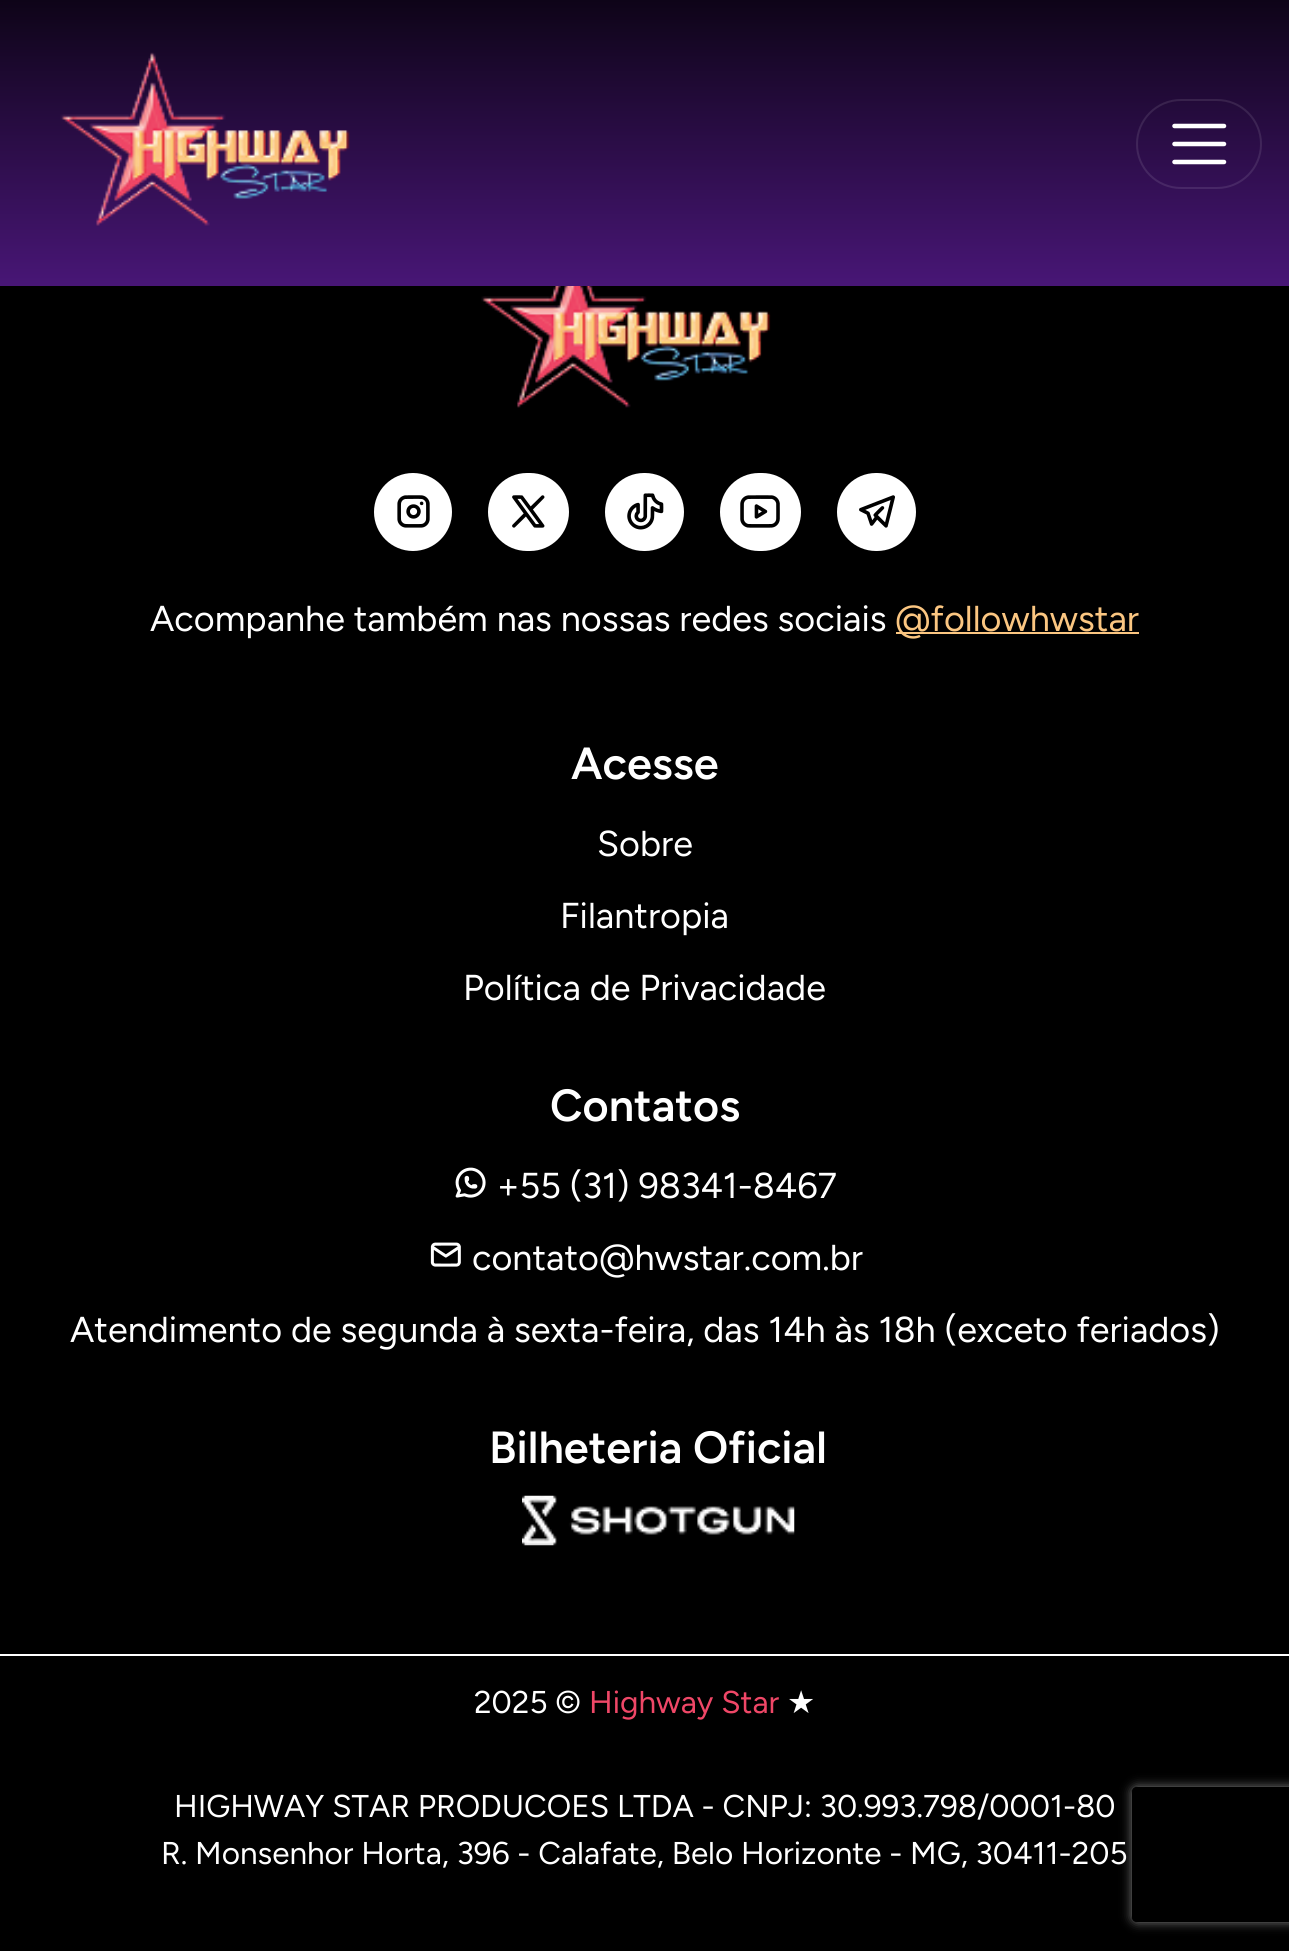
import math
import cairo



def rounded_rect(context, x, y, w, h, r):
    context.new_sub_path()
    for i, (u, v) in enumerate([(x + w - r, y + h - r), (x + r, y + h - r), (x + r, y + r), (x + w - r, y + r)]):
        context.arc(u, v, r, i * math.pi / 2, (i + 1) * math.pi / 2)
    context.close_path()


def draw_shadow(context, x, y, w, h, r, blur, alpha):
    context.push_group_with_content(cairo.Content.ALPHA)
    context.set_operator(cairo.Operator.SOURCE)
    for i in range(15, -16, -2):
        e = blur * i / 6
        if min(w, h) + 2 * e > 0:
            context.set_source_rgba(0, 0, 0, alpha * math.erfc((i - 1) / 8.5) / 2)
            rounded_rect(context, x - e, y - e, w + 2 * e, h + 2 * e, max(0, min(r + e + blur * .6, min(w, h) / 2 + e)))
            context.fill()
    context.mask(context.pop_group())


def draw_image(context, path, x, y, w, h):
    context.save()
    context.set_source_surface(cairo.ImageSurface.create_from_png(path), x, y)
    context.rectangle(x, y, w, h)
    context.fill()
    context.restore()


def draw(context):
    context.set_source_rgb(0, 0, 0)
    context.paint()
    gradient = cairo.LinearGradient(645, 0, 645, 286)
    gradient.add_color_stop_rgba(0, 14 / 255, 4 / 255, 24 / 255, 1)
    gradient.add_color_stop_rgba(1, 72 / 255, 22 / 255, 118 / 255, 1)
    context.set_source(gradient)
    context.rectangle(0, 0, 1289, 286)
    context.fill()
    draw_image(context, "images/1.png", 60, 52, 290, 174)
    rounded_rect(context, 1137, 100, 124, 88, 44)
    context.set_source_rgba(1, 1, 1, 0.1)
    context.stroke()
    context.new_path()
    context.move_to(1174.5, 126)
    context.line_to(1224, 126)
    context.move_to(1174.5, 144)
    context.line_to(1224, 144)
    context.move_to(1174.5, 162)
    context.line_to(1224, 162)
    context.set_source_rgb(1, 1, 1)
    context.set_line_width(4.5)
    context.set_line_cap(cairo.LineCap.ROUND)
    context.stroke()
    draw_image(context, "images/2.png", 481, 286, 290, 122)
    context.arc(413, 512, 39, 0, 2 * math.pi)
    context.fill()
    draw_image(context, "images/3.png", 397, 495, 33, 33)
    rounded_rect(context, 488, 473, 81, 78, 39)
    context.fill()
    draw_image(context, "images/4.png", 512, 495, 33, 33)
    rounded_rect(context, 605, 473, 79, 78, 39)
    context.fill()
    draw_image(context, "images/5.png", 627, 493, 37, 37)
    rounded_rect(context, 720, 473, 81, 78, 39)
    context.fill()
    draw_image(context, "images/6.png", 740, 495, 40, 33)
    rounded_rect(context, 837, 473, 79, 78, 39)
    context.fill()
    draw_image(context, "images/7.png", 859, 495, 36, 33)
    context.set_source_rgb(251 / 255, 198 / 255, 129 / 255)
    context.rectangle(896, 632, 243, 2)
    context.fill()
    draw_image(context, "images/8.png", 455, 1167, 31, 31)
    draw_image(context, "images/9.png", 430, 1242, 31, 25)
    draw_image(context, "images/10.png", 522, 1495, 273, 51)
    context.set_source_rgb(1, 1, 1)
    context.rectangle(0, 1654, 1289, 2)
    context.fill()
    context.save()
    context.set_fill_rule(cairo.FillRule.EVEN_ODD)
    context.new_path()
    context.move_to(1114, 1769)
    context.line_to(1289, 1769)
    context.line_to(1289, 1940)
    context.line_to(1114, 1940)
    context.close_path()
    context.move_to(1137, 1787)
    context.line_to(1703, 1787)
    context.curve_to(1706, 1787, 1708, 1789, 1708, 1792)
    context.line_to(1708, 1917)
    context.curve_to(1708, 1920, 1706, 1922, 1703, 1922)
    context.line_to(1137, 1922)
    context.curve_to(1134, 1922, 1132, 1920, 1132, 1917)
    context.line_to(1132, 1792)
    context.curve_to(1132, 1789, 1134, 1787, 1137, 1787)
    context.close_path()
    context.clip()
    context.set_source_rgb(128 / 255, 128 / 255, 128 / 255)
    draw_shadow(context, 1132, 1787, 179, 135, 5, 5.5, 1)
    context.restore()
    context.select_font_face("Figtree")
    context.set_font_size(36)
    context.move_to(150, 631)
    context.show_text("Acompanhe também nas nossas redes sociais")
    context.set_source_rgb(251 / 255, 198 / 255, 129 / 255)
    context.move_to(895, 631)
    context.show_text("@followhwstar")
    context.select_font_face("Figtree SemiBold")
    context.set_font_size(45)
    context.set_source_rgb(1, 1, 1)
    context.move_to(571, 779)
    context.show_text("Acesse")
    context.select_font_face("Figtree")
    context.set_font_size(36)
    context.move_to(597, 856)
    context.show_text("Sobre")
    context.move_to(560, 928)
    context.show_text("Filantropia")
    context.move_to(463, 1000)
    context.show_text("Política de Privacidade")
    context.select_font_face("Figtree SemiBold")
    context.set_font_size(45)
    context.move_to(550, 1121)
    context.show_text("Contatos")
    context.select_font_face("Figtree")
    context.set_font_size(36)
    context.move_to(497, 1198)
    context.show_text("+55 (31) 98341-8467")
    context.move_to(472, 1270)
    context.show_text("contato@hwstar.com.br")
    context.move_to(70, 1342)
    context.show_text("Atendimento de segunda à sexta-feira, das 14h às 18h (exceto feriados)")
    context.select_font_face("Figtree SemiBold")
    context.set_font_size(45)
    context.move_to(489, 1463)
    context.show_text("Bilheteria Oficial")
    context.select_font_face("Figtree")
    context.set_font_size(31.5)
    context.move_to(474, 1713)
    context.show_text("2025 ©")
    context.set_source_rgb(239 / 255, 71 / 255, 103 / 255)
    context.move_to(589, 1713)
    context.show_text("Highway Star")
    context.select_font_face("DejaVu Sans")
    context.set_source_rgb(1, 1, 1)
    context.move_to(787, 1713)
    context.show_text("★")
    context.select_font_face("Figtree")
    context.move_to(174, 1817)
    context.show_text("HIGHWAY STAR PRODUCOES LTDA - CNPJ: 30.993.798/0001-80")
    context.move_to(161, 1864)
    context.show_text("R. Monsenhor Horta, 396 - Calafate, Belo Horizonte - MG, 30411-205")


surface = cairo.ImageSurface(cairo.Format.RGB24, 1289, 1951)
context = cairo.Context(surface)
options = cairo.FontOptions()
options.set_hint_metrics(cairo.HintMetrics.OFF)
options.set_hint_style(cairo.HintStyle.NONE)
context.set_font_options(options)
context.set_miter_limit(4)
draw(context)
surface.write_to_png("out.png")
